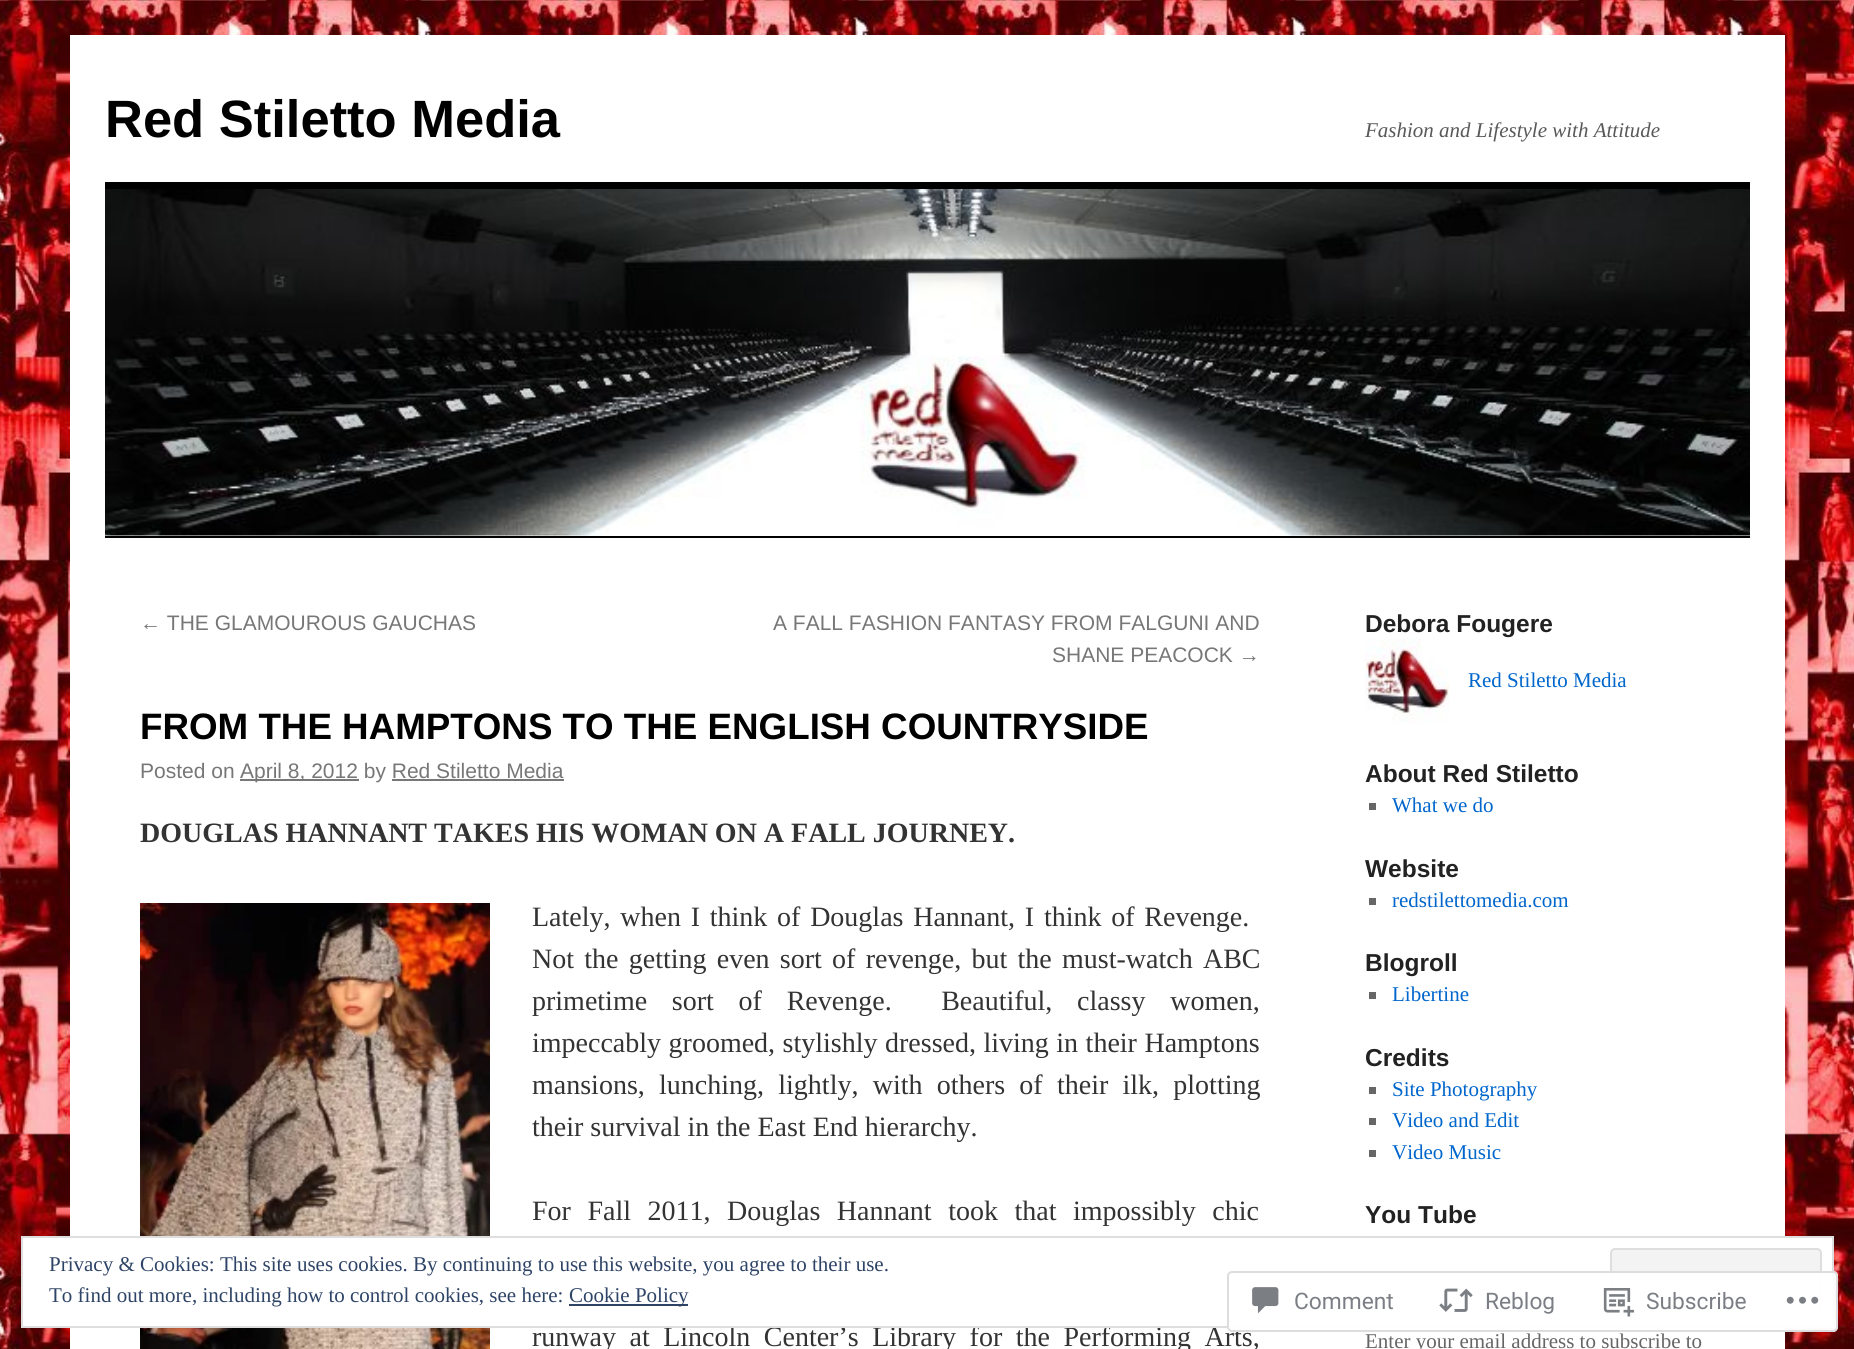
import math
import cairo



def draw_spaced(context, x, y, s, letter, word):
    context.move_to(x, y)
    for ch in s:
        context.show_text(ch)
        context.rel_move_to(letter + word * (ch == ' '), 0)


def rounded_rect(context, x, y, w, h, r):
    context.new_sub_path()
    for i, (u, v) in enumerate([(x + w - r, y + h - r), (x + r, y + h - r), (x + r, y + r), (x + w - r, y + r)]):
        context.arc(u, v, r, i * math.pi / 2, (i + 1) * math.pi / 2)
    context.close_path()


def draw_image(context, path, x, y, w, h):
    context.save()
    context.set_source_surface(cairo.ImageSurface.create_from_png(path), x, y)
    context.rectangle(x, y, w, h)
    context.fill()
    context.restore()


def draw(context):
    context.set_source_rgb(1, 1, 1)
    context.paint()
    draw_image(context, "images/1.png", 0, 0, 1854, 1349)
    context.set_source_rgb(1, 1, 1)
    context.rectangle(70, 35, 1715, 1314)
    context.fill()
    context.set_source_rgb(0, 0, 0)
    context.rectangle(105, 182, 1645, 7)
    context.fill()
    context.rectangle(105, 536, 1645, 2)
    context.fill()
    draw_image(context, "images/2.png", 105, 189, 1645, 347)
    context.set_source_rgb(119 / 255, 119 / 255, 119 / 255)
    context.rectangle(240, 779, 119, 2)
    context.fill()
    context.rectangle(392, 779, 172, 2)
    context.fill()
    draw_image(context, "images/3.png", 140, 903, 350, 446)
    draw_image(context, "images/4.png", 1365, 639, 84, 84)
    context.set_source_rgb(102 / 255, 102 / 255, 102 / 255)
    context.rectangle(1369, 803, 7, 7)
    context.fill()
    context.rectangle(1369, 898, 7, 7)
    context.fill()
    context.rectangle(1369, 992, 7, 7)
    context.fill()
    context.rectangle(1369, 1087, 7, 7)
    context.fill()
    context.rectangle(1369, 1118, 7, 7)
    context.fill()
    context.rectangle(1369, 1150, 7, 7)
    context.fill()
    context.select_font_face("Liberation Sans", cairo.FontSlant.NORMAL, cairo.FontWeight.BOLD)
    context.set_font_size(52.5)
    context.set_source_rgb(0, 0, 0)
    context.move_to(105, 137)
    context.show_text("Red Stiletto Media")
    context.select_font_face("Liberation Serif", cairo.FontSlant.ITALIC)
    context.set_font_size(21)
    context.set_source_rgb(89 / 255, 89 / 255, 89 / 255)
    context.move_to(1365, 137)
    context.show_text("Fashion and Lifestyle with Attitude")
    context.select_font_face("Liberation Sans")
    context.set_source_rgb(119 / 255, 119 / 255, 119 / 255)
    context.move_to(140, 630)
    context.show_text("← THE GLAMOUROUS GAUCHAS")
    context.move_to(773, 630)
    context.show_text("A FALL FASHION FANTASY FROM FALGUNI AND")
    context.move_to(1052, 662)
    context.show_text("SHANE PEACOCK →")
    context.select_font_face("Liberation Sans", cairo.FontSlant.NORMAL, cairo.FontWeight.BOLD)
    context.set_font_size(36.75)
    context.set_source_rgb(0, 0, 0)
    context.move_to(140, 739)
    context.show_text("FROM THE HAMPTONS TO THE ENGLISH COUNTRYSIDE")
    context.select_font_face("Liberation Sans")
    context.set_font_size(21)
    context.set_source_rgb(119 / 255, 119 / 255, 119 / 255)
    context.move_to(140, 778)
    context.show_text("Posted on")
    context.move_to(240, 778)
    context.show_text("April 8, 2012 by Red Stiletto Media")
    context.select_font_face("Liberation Serif", cairo.FontSlant.NORMAL, cairo.FontWeight.BOLD)
    context.set_font_size(28)
    context.set_source_rgb(51 / 255, 51 / 255, 51 / 255)
    context.move_to(140, 842)
    context.show_text("DOUGLAS HANNANT TAKES HIS WOMAN ON A FALL JOURNEY.")
    context.select_font_face("Liberation Serif")
    draw_spaced(context, 532, 926, "Lately, when I think of Douglas Hannant, I think of Revenge.", 0, 2.75)
    draw_spaced(context, 532, 968, "Not the getting even sort of revenge, but the must-watch ABC", 0, 3.25)
    draw_spaced(context, 532, 1010, "primetime sort of Revenge.  Beautiful, classy women,", 0, 17.75)
    draw_spaced(context, 532, 1052, "impeccably groomed, stylishly dressed, living in their Hamptons", 0, 0.5)
    draw_spaced(context, 532, 1094, "mansions, lunching, lightly, with others of their ilk, plotting", 0, 7.25)
    context.move_to(532, 1136)
    context.show_text("their survival in the East End hierarchy.")
    draw_spaced(context, 532, 1220, "For Fall 2011, Douglas Hannant took that impossibly chic", 0, 9.5)
    draw_spaced(context, 532, 1346, "runway at Lincoln Center’s Library for the Performing Arts,", 0, 6.5)
    context.select_font_face("Liberation Sans", cairo.FontSlant.NORMAL, cairo.FontWeight.BOLD)
    context.set_font_size(24.5)
    context.set_source_rgb(34 / 255, 34 / 255, 34 / 255)
    context.move_to(1365, 632)
    context.show_text("Debora Fougere")
    context.select_font_face("Liberation Serif")
    context.set_font_size(21)
    context.set_source_rgb(0, 102 / 255, 204 / 255)
    context.move_to(1468, 687)
    context.show_text("Red Stiletto Media")
    context.select_font_face("Liberation Sans", cairo.FontSlant.NORMAL, cairo.FontWeight.BOLD)
    context.set_font_size(24.5)
    context.set_source_rgb(34 / 255, 34 / 255, 34 / 255)
    context.move_to(1365, 782)
    context.show_text("About Red Stiletto")
    context.select_font_face("Liberation Serif")
    context.set_font_size(21)
    context.set_source_rgb(0, 102 / 255, 204 / 255)
    context.move_to(1392, 812)
    context.show_text("What we do")
    context.select_font_face("Liberation Sans", cairo.FontSlant.NORMAL, cairo.FontWeight.BOLD)
    context.set_font_size(24.5)
    context.set_source_rgb(34 / 255, 34 / 255, 34 / 255)
    context.move_to(1365, 877)
    context.show_text("Website")
    context.select_font_face("Liberation Serif")
    context.set_font_size(21)
    context.set_source_rgb(0, 102 / 255, 204 / 255)
    context.move_to(1392, 907)
    context.show_text("redstilettomedia.com")
    context.select_font_face("Liberation Sans", cairo.FontSlant.NORMAL, cairo.FontWeight.BOLD)
    context.set_font_size(24.5)
    context.set_source_rgb(34 / 255, 34 / 255, 34 / 255)
    context.move_to(1365, 971)
    context.show_text("Blogroll")
    context.select_font_face("Liberation Serif")
    context.set_font_size(21)
    context.set_source_rgb(0, 102 / 255, 204 / 255)
    context.move_to(1392, 1001)
    context.show_text("Libertine")
    context.select_font_face("Liberation Sans", cairo.FontSlant.NORMAL, cairo.FontWeight.BOLD)
    context.set_font_size(24.5)
    context.set_source_rgb(34 / 255, 34 / 255, 34 / 255)
    context.move_to(1365, 1066)
    context.show_text("Credits")
    context.select_font_face("Liberation Serif")
    context.set_font_size(21)
    context.set_source_rgb(0, 102 / 255, 204 / 255)
    context.move_to(1392, 1096)
    context.show_text("Site Photography")
    context.move_to(1392, 1127)
    context.show_text("Video and Edit")
    context.move_to(1392, 1159)
    context.show_text("Video Music")
    context.select_font_face("Liberation Sans", cairo.FontSlant.NORMAL, cairo.FontWeight.BOLD)
    context.set_font_size(24.5)
    context.set_source_rgb(34 / 255, 34 / 255, 34 / 255)
    context.move_to(1365, 1223)
    context.show_text("You Tube")
    context.select_font_face("Liberation Serif")
    context.set_font_size(21)
    context.set_source_rgb(102 / 255, 102 / 255, 102 / 255)
    context.move_to(1365, 1348)
    context.show_text("Enter your email address to subscribe to")
    context.set_source_rgb(1, 1, 1)
    context.rectangle(22, 1237, 1811, 90)
    context.fill_preserve()
    context.set_source_rgb(222 / 255, 222 / 255, 222 / 255)
    context.stroke()
    context.set_source_rgb(46 / 255, 68 / 255, 103 / 255)
    context.move_to(49, 1271)
    context.show_text("Privacy & Cookies: This site uses cookies. By continuing to use this website, you agree to their use.")
    context.set_source_rgb(243 / 255, 243 / 255, 243 / 255)
    rounded_rect(context, 1611, 1249, 210, 66, 4)
    context.fill_preserve()
    context.set_source_rgb(222 / 255, 222 / 255, 222 / 255)
    context.stroke()
    context.set_source_rgb(46 / 255, 68 / 255, 103 / 255)
    context.move_to(49, 1302)
    context.show_text("To find out more, including how to control cookies, see here:")
    context.rectangle(569, 1304, 119, 2)
    context.fill()
    context.move_to(569, 1302)
    context.show_text("Cookie Policy")
    context.set_source_rgba(1, 1, 1, 0.98)
    rounded_rect(context, 1227, 1271, 611, 61, 5)
    context.fill()
    rounded_rect(context, 1228, 1272, 609, 59, 4)
    context.set_source_rgba(220 / 255, 220 / 255, 222 / 255, 0.98)
    context.stroke()
    draw_image(context, "images/5.png", 1252, 1287, 27, 27)
    context.select_font_face("Roboto")
    context.set_font_size(22.75)
    context.set_source_rgb(123 / 255, 127 / 255, 133 / 255)
    context.move_to(1294, 1309)
    context.show_text("Comment")
    draw_image(context, "images/6.png", 1439, 1288, 34, 24)
    context.move_to(1485, 1309)
    context.show_text("Reblog")
    draw_image(context, "images/7.png", 1603, 1288, 32, 29)
    context.move_to(1646, 1309)
    context.show_text("Subscribe")
    draw_image(context, "images/8.png", 1786, 1296, 33, 8)


surface = cairo.ImageSurface(cairo.Format.RGB24, 1854, 1349)
context = cairo.Context(surface)
options = cairo.FontOptions()
options.set_hint_metrics(cairo.HintMetrics.OFF)
options.set_hint_style(cairo.HintStyle.NONE)
context.set_font_options(options)
context.set_miter_limit(4)
draw(context)
surface.write_to_png("out.png")
